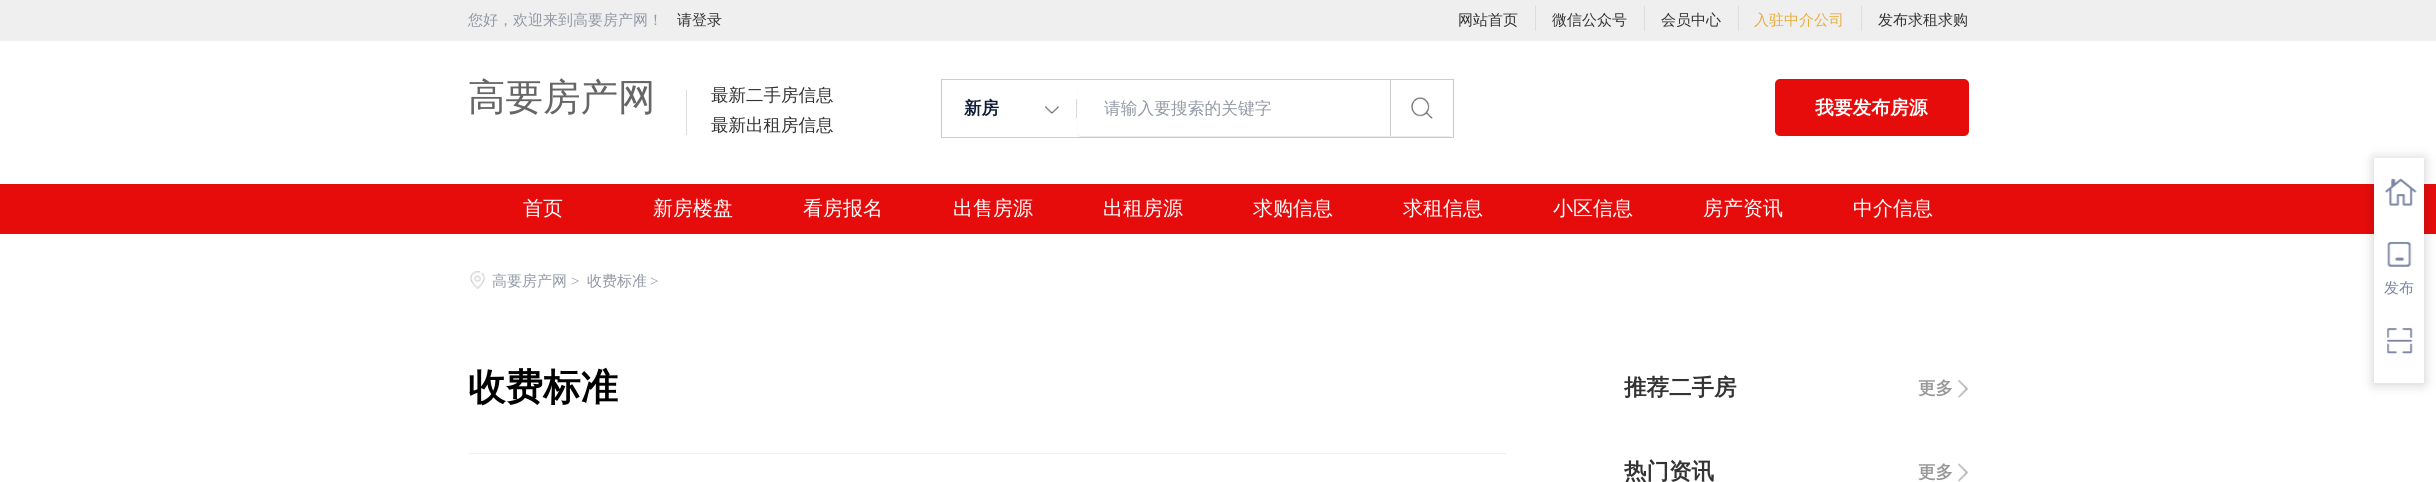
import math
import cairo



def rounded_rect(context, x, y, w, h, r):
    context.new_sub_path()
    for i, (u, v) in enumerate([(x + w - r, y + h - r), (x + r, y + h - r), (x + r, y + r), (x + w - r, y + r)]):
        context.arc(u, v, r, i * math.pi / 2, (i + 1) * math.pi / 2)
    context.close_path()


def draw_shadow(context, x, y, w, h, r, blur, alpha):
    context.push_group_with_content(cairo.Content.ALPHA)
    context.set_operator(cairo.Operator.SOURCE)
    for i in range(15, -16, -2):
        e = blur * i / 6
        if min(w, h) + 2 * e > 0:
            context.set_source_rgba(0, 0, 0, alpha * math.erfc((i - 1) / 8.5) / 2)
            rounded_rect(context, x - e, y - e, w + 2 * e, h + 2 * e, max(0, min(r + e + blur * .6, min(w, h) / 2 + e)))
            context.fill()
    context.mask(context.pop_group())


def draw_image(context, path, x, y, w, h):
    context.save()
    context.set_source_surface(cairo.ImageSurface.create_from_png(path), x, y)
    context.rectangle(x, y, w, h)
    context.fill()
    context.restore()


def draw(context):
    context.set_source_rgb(1, 1, 1)
    context.paint()
    context.set_source_rgb(239 / 255, 239 / 255, 239 / 255)
    context.rectangle(0, 0, 2436, 41)
    context.fill()
    context.set_source_rgb(221 / 255, 221 / 255, 221 / 255)
    context.rectangle(1535, 6, 1, 25)
    context.fill()
    context.rectangle(1644, 6, 1, 25)
    context.fill()
    context.rectangle(1738, 6, 1, 25)
    context.fill()
    context.rectangle(1861, 6, 1, 25)
    context.fill()
    context.rectangle(686, 90, 1, 45)
    context.fill()
    context.rectangle(941.5, 79.5, 512, 58)
    context.set_source_rgb(204 / 255, 204 / 255, 204 / 255)
    context.set_line_width(1)
    context.stroke()
    context.set_source_rgb(221 / 255, 221 / 255, 221 / 255)
    context.rectangle(1076, 99, 1, 19)
    context.fill()
    draw_image(context, "images/1.png", 1045, 106, 14, 8)
    context.set_source_rgb(0, 0, 0)
    draw_shadow(context, 1079, 83, 372, 53, 1, 1, 0.2)
    context.set_source_rgb(1, 1, 1)
    rounded_rect(context, 1078, 80, 375, 56, 2.5)
    context.fill()
    context.set_source_rgb(204 / 255, 204 / 255, 204 / 255)
    context.rectangle(1390, 80, 1, 56)
    context.fill()
    draw_image(context, "images/2.png", 1411, 97, 22, 22)
    context.set_source_rgb(230 / 255, 12 / 255, 12 / 255)
    rounded_rect(context, 1775, 79, 194, 57, 5)
    context.fill()
    context.rectangle(0, 184, 2436, 50)
    context.fill()
    draw_image(context, "images/3.png", 469, 271, 17, 18)
    context.set_source_rgb(0, 0, 0)
    draw_shadow(context, 2374, 159, 50, 225, 0, 6, 0.2)
    context.set_source_rgb(1, 1, 1)
    context.rectangle(2374, 158, 50, 225)
    context.fill()
    draw_image(context, "images/4.png", 2385, 178, 32, 28)
    draw_image(context, "images/5.png", 2387, 242, 25, 25)
    draw_image(context, "images/6.png", 2387, 328, 26, 26)
    context.set_source_rgb(239 / 255, 239 / 255, 239 / 255)
    context.rectangle(469, 453, 1037, 1)
    context.fill()
    draw_image(context, "images/7.png", 1957, 380, 11, 18)
    draw_image(context, "images/8.png", 1957, 463, 11, 19)
    context.select_font_face("WenQuanYi Zen Hei Medium")
    context.set_font_size(15)
    context.set_source_rgb(147 / 255, 153 / 255, 165 / 255)
    context.move_to(468, 25)
    context.show_text("您好，欢迎来到高要房产网！")
    context.set_source_rgb(51 / 255, 51 / 255, 51 / 255)
    context.move_to(677, 25)
    context.show_text("请登录")
    context.move_to(1458, 25)
    context.show_text("网站首页")
    context.move_to(1552, 25)
    context.show_text("微信公众号")
    context.move_to(1661, 25)
    context.show_text("会员中心")
    context.set_source_rgb(232 / 255, 174 / 255, 64 / 255)
    context.move_to(1754, 25)
    context.show_text("入驻中介公司")
    context.set_source_rgb(51 / 255, 51 / 255, 51 / 255)
    context.move_to(1878, 25)
    context.show_text("发布求租求购")
    context.set_font_size(37.5)
    context.set_source_rgb(102 / 255, 102 / 255, 102 / 255)
    context.move_to(468, 110)
    context.show_text("高要房产网")
    context.set_font_size(17.5)
    context.set_source_rgb(51 / 255, 51 / 255, 51 / 255)
    context.move_to(711, 101)
    context.show_text("最新二手房信息")
    context.move_to(711, 131)
    context.show_text("最新出租房信息")
    context.select_font_face("WenQuanYi Zen Hei", cairo.FontSlant.NORMAL, cairo.FontWeight.BOLD)
    context.set_source_rgb(16 / 255, 29 / 255, 55 / 255)
    context.move_to(964, 114)
    context.show_text("新房")
    context.select_font_face("WenQuanYi Zen Hei Medium")
    context.set_font_size(16.75)
    context.set_source_rgb(147 / 255, 153 / 255, 165 / 255)
    context.move_to(1104, 114)
    context.show_text("请输入要搜索的关键字")
    context.select_font_face("WenQuanYi Zen Hei", cairo.FontSlant.NORMAL, cairo.FontWeight.BOLD)
    context.set_font_size(18.75)
    context.set_source_rgb(1, 1, 1)
    context.move_to(1815, 114)
    context.show_text("我要发布房源")
    context.select_font_face("WenQuanYi Zen Hei Medium")
    context.set_font_size(20)
    context.move_to(523, 215)
    context.show_text("首页")
    context.move_to(653, 215)
    context.show_text("新房楼盘")
    context.move_to(803, 215)
    context.show_text("看房报名")
    context.move_to(953, 215)
    context.show_text("出售房源")
    context.move_to(1103, 215)
    context.show_text("出租房源")
    context.move_to(1253, 215)
    context.show_text("求购信息")
    context.move_to(1403, 215)
    context.show_text("求租信息")
    context.move_to(1553, 215)
    context.show_text("小区信息")
    context.move_to(1703, 215)
    context.show_text("房产资讯")
    context.move_to(1853, 215)
    context.show_text("中介信息")
    context.set_font_size(15)
    context.set_source_rgb(147 / 255, 153 / 255, 165 / 255)
    context.move_to(492, 286)
    context.show_text("高要房产网")
    context.select_font_face("Liberation Serif")
    context.move_to(571, 286)
    context.show_text(">")
    context.select_font_face("WenQuanYi Zen Hei Medium")
    context.move_to(587, 286)
    context.show_text("收费标准")
    context.select_font_face("Liberation Serif")
    context.move_to(650, 286)
    context.show_text(">")
    context.select_font_face("WenQuanYi Zen Hei Medium")
    context.set_source_rgb(124 / 255, 135 / 255, 165 / 255)
    context.move_to(2384, 293)
    context.show_text("发布")
    context.select_font_face("WenQuanYi Zen Hei", cairo.FontSlant.NORMAL, cairo.FontWeight.BOLD)
    context.set_font_size(37.5)
    context.set_source_rgb(0, 0, 0)
    context.move_to(468, 400)
    context.show_text("收费标准")
    context.set_font_size(22.5)
    context.set_source_rgb(51 / 255, 51 / 255, 51 / 255)
    context.move_to(1624, 395)
    context.show_text("推荐二手房")
    context.set_font_size(17.5)
    context.set_source_rgb(153 / 255, 153 / 255, 153 / 255)
    context.move_to(1918, 394)
    context.show_text("更多")
    context.set_font_size(22.5)
    context.set_source_rgb(51 / 255, 51 / 255, 51 / 255)
    context.move_to(1624, 479)
    context.show_text("热门资讯")
    context.set_font_size(17.5)
    context.set_source_rgb(153 / 255, 153 / 255, 153 / 255)
    context.move_to(1918, 478)
    context.show_text("更多")


surface = cairo.ImageSurface(cairo.Format.RGB24, 2436, 482)
context = cairo.Context(surface)
options = cairo.FontOptions()
options.set_hint_metrics(cairo.HintMetrics.OFF)
options.set_hint_style(cairo.HintStyle.NONE)
context.set_font_options(options)
context.set_miter_limit(4)
draw(context)
surface.write_to_png("out.png")
